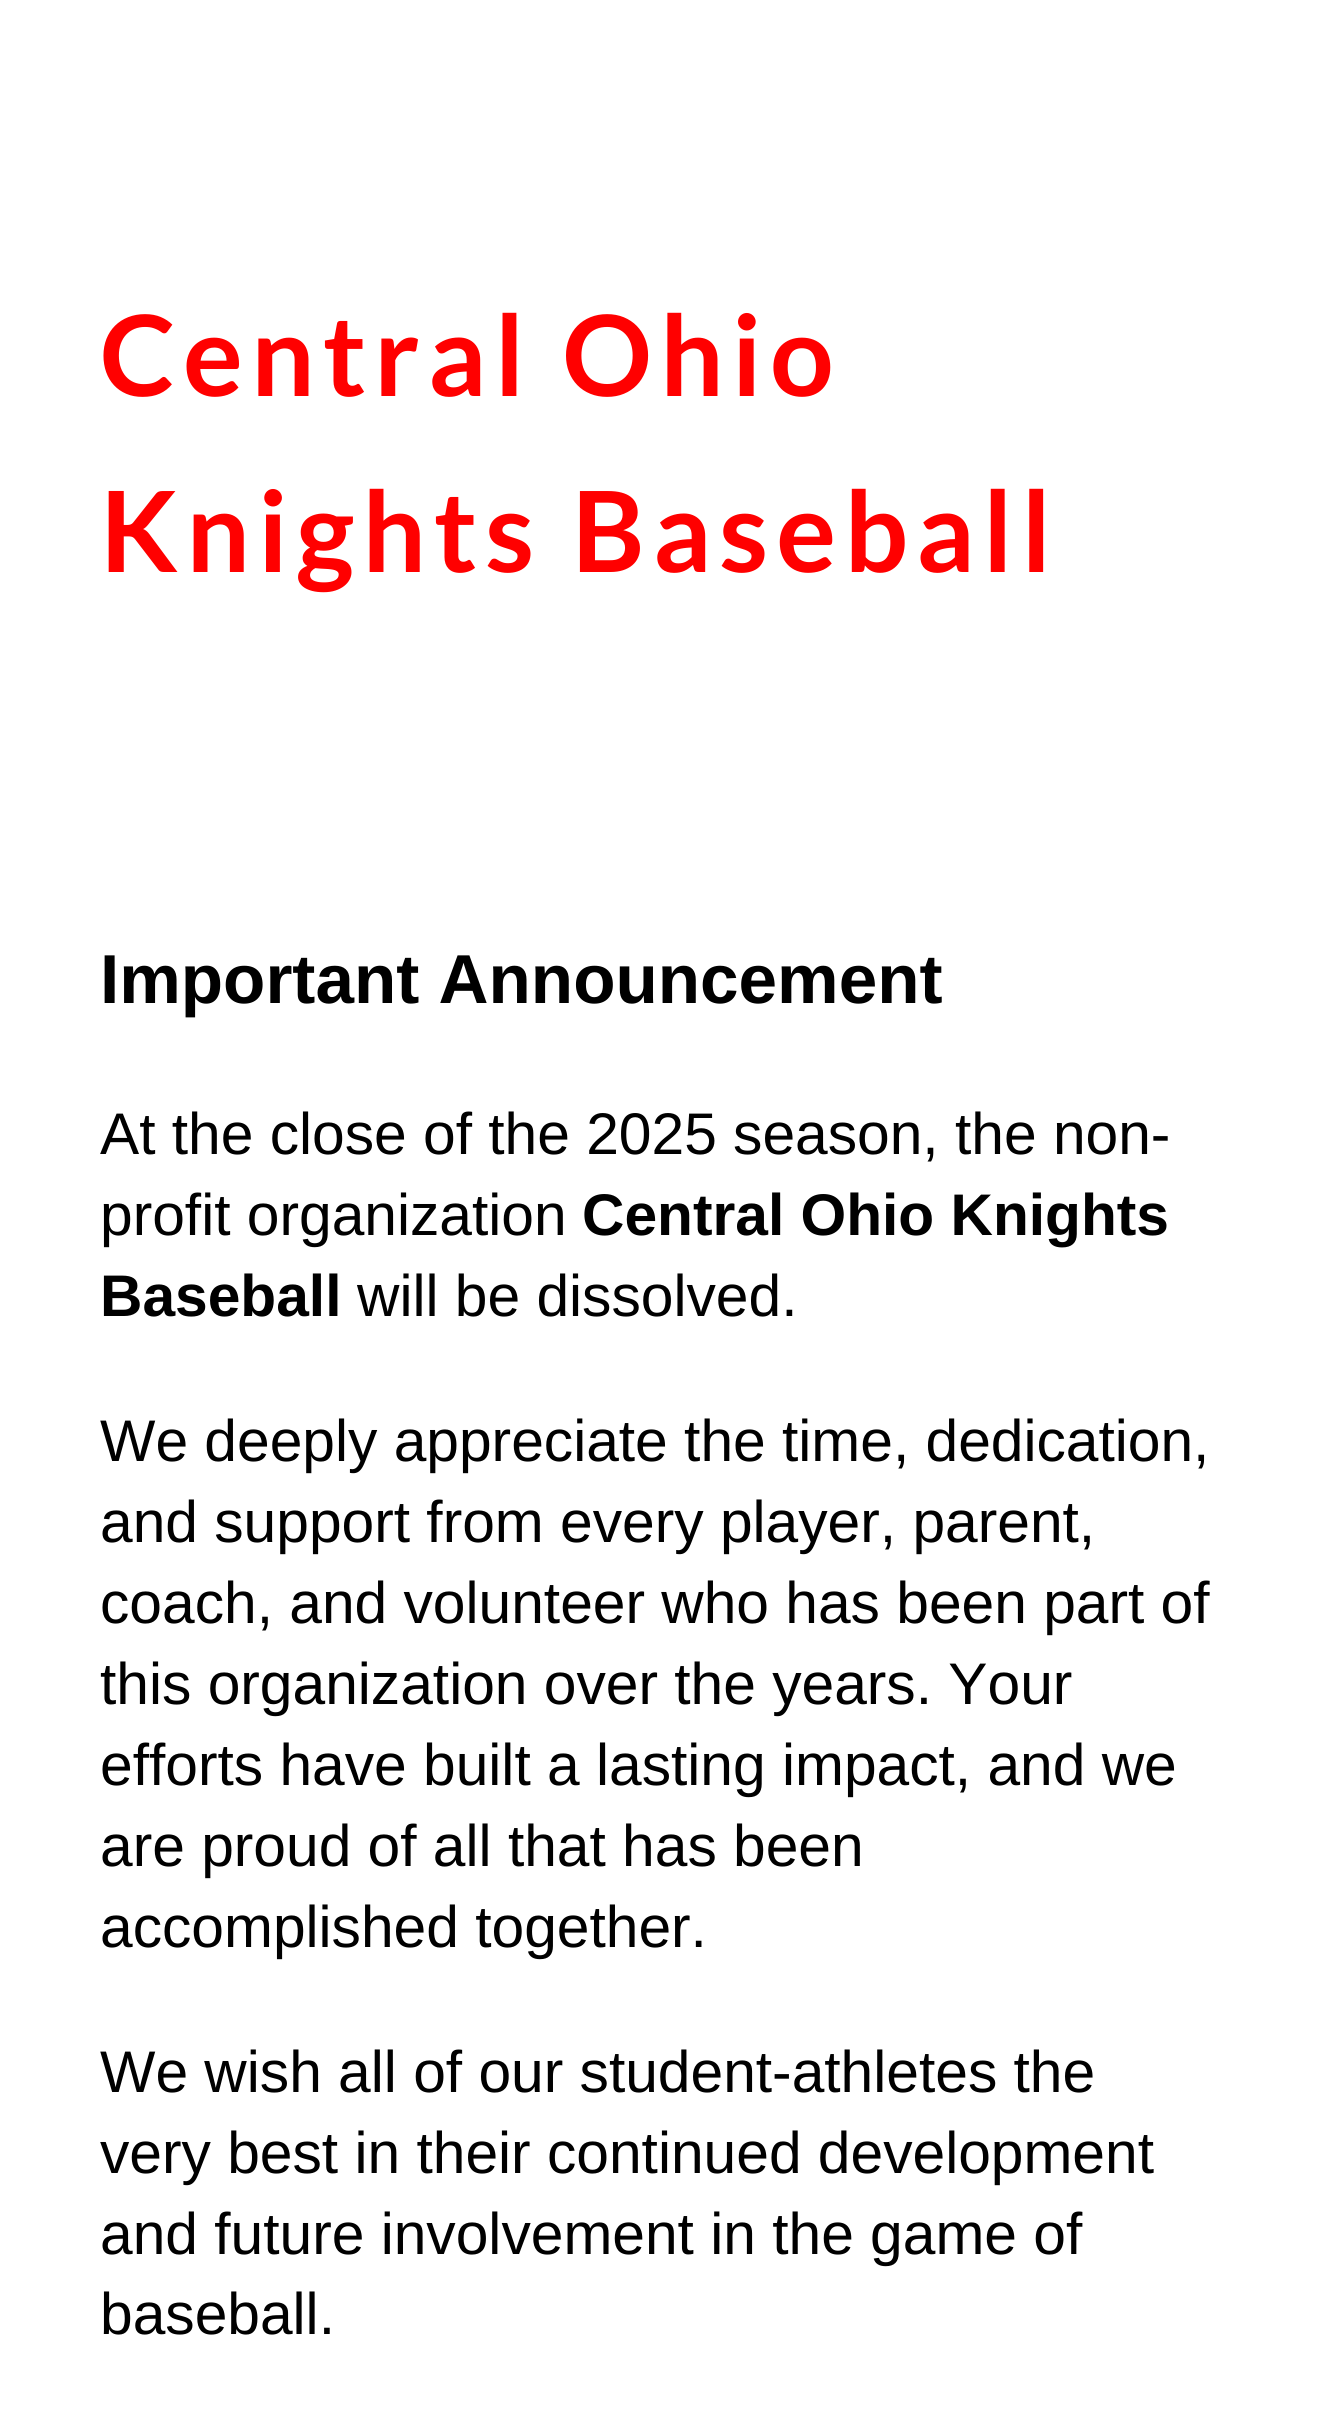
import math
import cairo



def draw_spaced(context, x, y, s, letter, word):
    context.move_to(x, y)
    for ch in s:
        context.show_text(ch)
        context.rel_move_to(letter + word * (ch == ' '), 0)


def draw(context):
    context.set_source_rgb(1, 1, 1)
    context.paint()
    context.select_font_face("Lato", cairo.FontSlant.NORMAL, cairo.FontWeight.BOLD)
    context.set_font_size(112)
    context.set_source_rgb(1, 0, 0)
    draw_spaced(context, 100, 396, "Central Ohio", 8, 0)
    draw_spaced(context, 100, 572, "Knights Baseball", 8, 0)
    context.select_font_face("Liberation Sans", cairo.FontSlant.NORMAL, cairo.FontWeight.BOLD)
    context.set_font_size(69.25)
    context.set_source_rgb(0, 0, 0)
    context.move_to(100, 1003)
    context.show_text("Important Announcement")
    context.select_font_face("Liberation Sans")
    context.set_font_size(58.7)
    context.move_to(100, 1154)
    context.show_text("At the close of the 2025 season, the non-")
    context.move_to(100, 1235)
    context.show_text("profit organization")
    context.select_font_face("Liberation Sans", cairo.FontSlant.NORMAL, cairo.FontWeight.BOLD)
    context.move_to(582, 1235)
    context.show_text("Central Ohio Knights")
    context.move_to(100, 1316)
    context.show_text("Baseball")
    context.select_font_face("Liberation Sans")
    context.move_to(357, 1316)
    context.show_text("will be dissolved.")
    context.move_to(100, 1461)
    context.show_text("We deeply appreciate the time, dedication,")
    context.move_to(100, 1542)
    context.show_text("and support from every player, parent,")
    context.move_to(100, 1623)
    context.show_text("coach, and volunteer who has been part of")
    context.move_to(100, 1704)
    context.show_text("this organization over the years. Your")
    context.move_to(100, 1785)
    context.show_text("efforts have built a lasting impact, and we")
    context.move_to(100, 1866)
    context.show_text("are proud of all that has been")
    context.move_to(100, 1947)
    context.show_text("accomplished together.")
    context.move_to(100, 2092)
    context.show_text("We wish all of our student-athletes the")
    context.move_to(100, 2173)
    context.show_text("very best in their continued development")
    context.move_to(100, 2254)
    context.show_text("and future involvement in the game of")
    context.move_to(100, 2334)
    context.show_text("baseball.")


surface = cairo.ImageSurface(cairo.Format.RGB24, 1317, 2426)
context = cairo.Context(surface)
options = cairo.FontOptions()
options.set_hint_metrics(cairo.HintMetrics.OFF)
options.set_hint_style(cairo.HintStyle.NONE)
context.set_font_options(options)
context.set_miter_limit(4)
draw(context)
surface.write_to_png("out.png")
